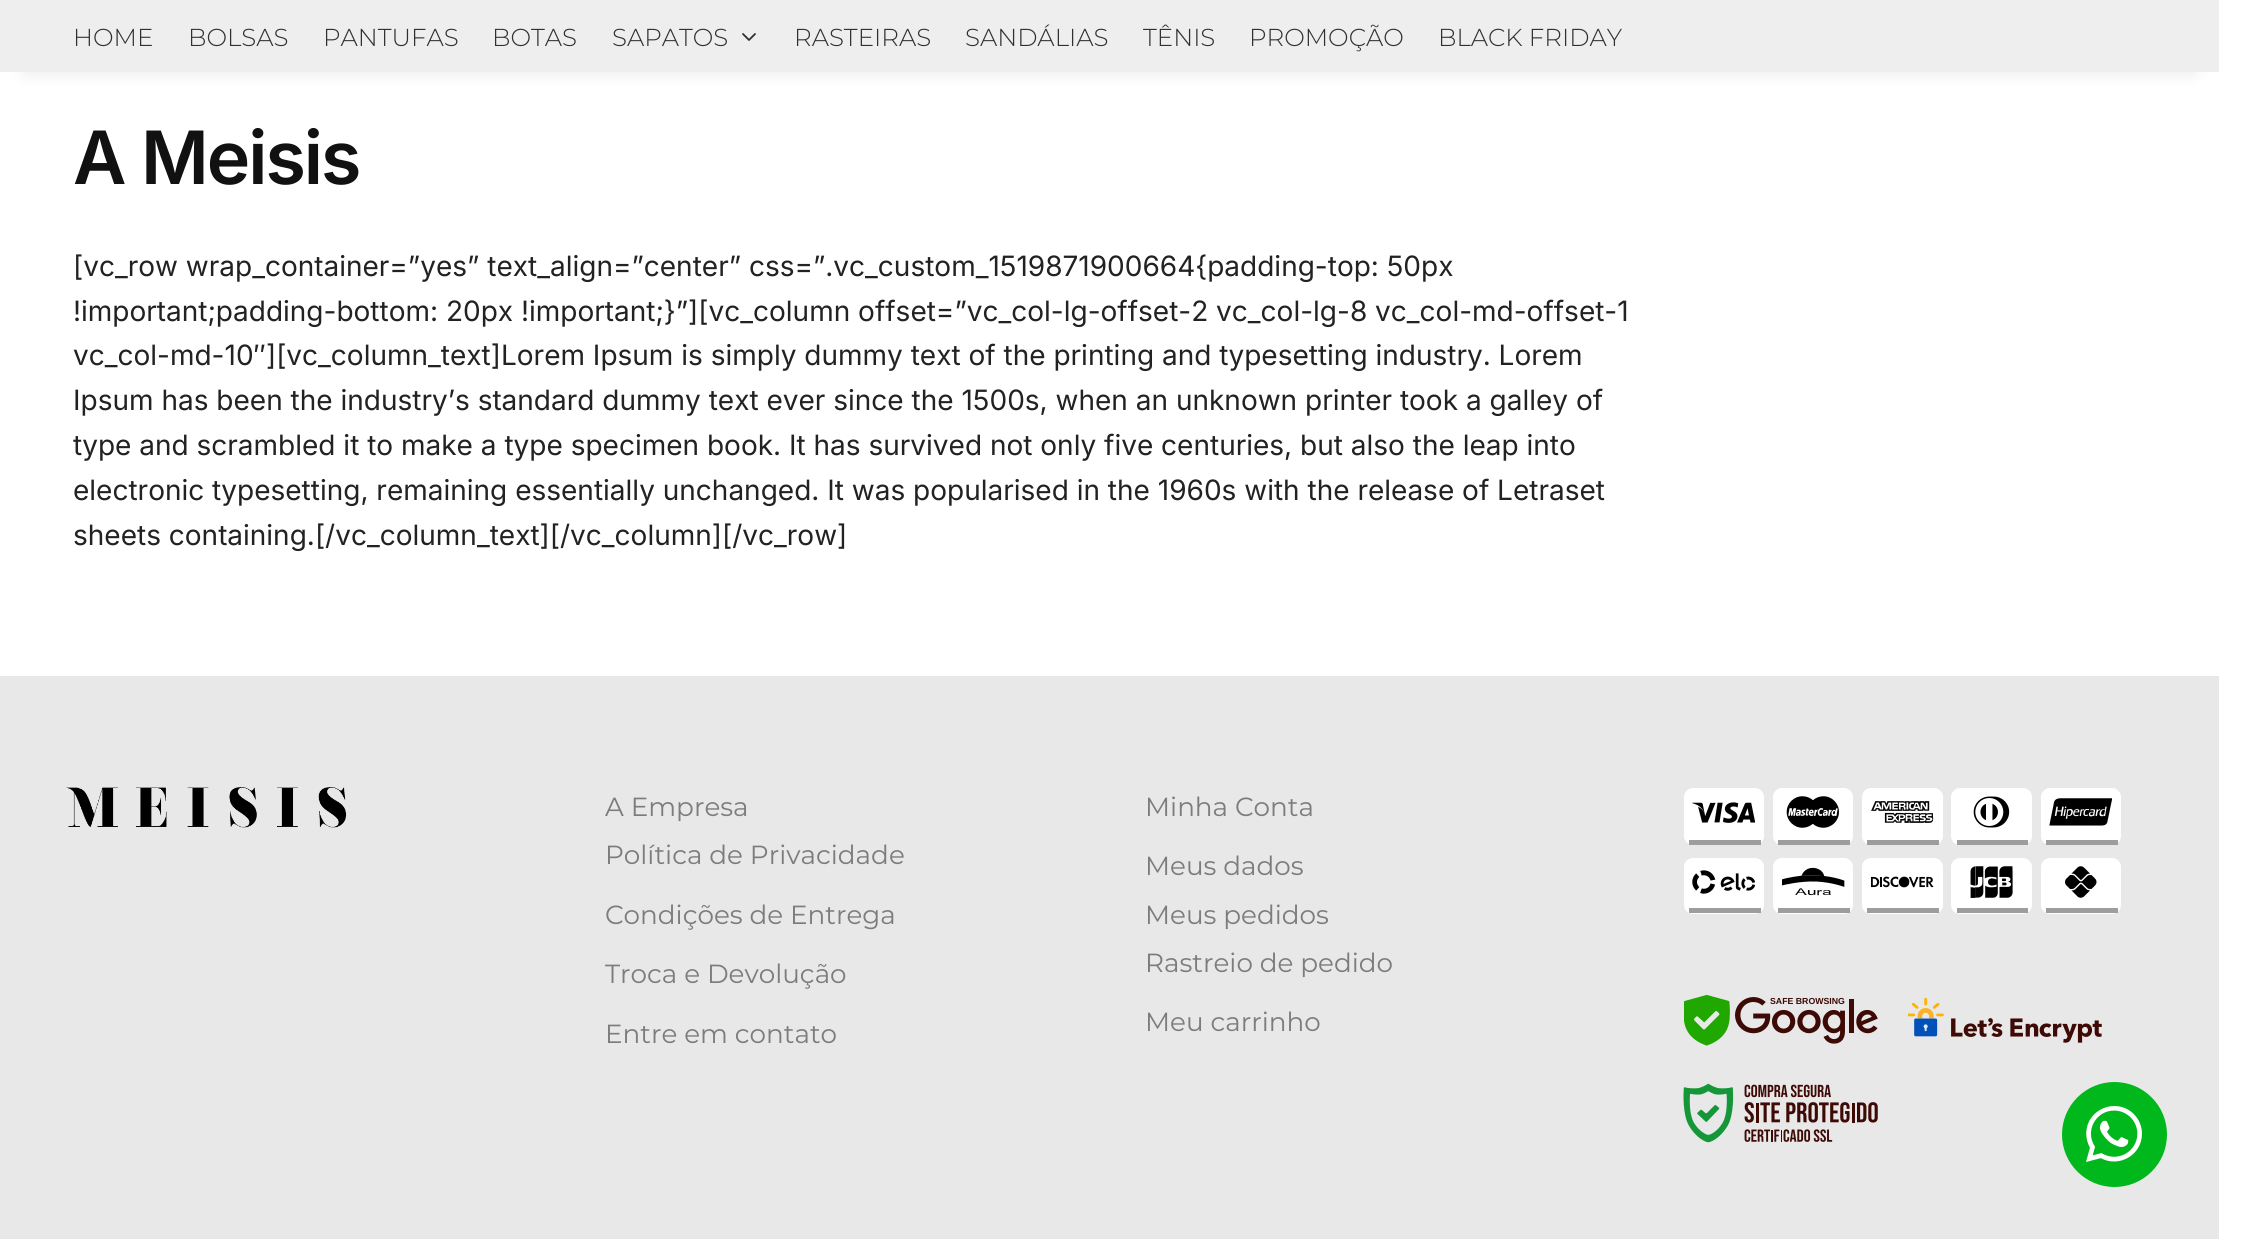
import math
import cairo



def draw_spaced(context, x, y, s, letter, word):
    context.move_to(x, y)
    for ch in s:
        context.show_text(ch)
        context.rel_move_to(letter + word * (ch == ' '), 0)


def rounded_rect(context, x, y, w, h, r):
    context.new_sub_path()
    for i, (u, v) in enumerate([(x + w - r, y + h - r), (x + r, y + h - r), (x + r, y + r), (x + w - r, y + r)]):
        context.arc(u, v, r, i * math.pi / 2, (i + 1) * math.pi / 2)
    context.close_path()


def draw_shadow(context, x, y, w, h, r, blur, alpha):
    context.push_group_with_content(cairo.Content.ALPHA)
    context.set_operator(cairo.Operator.SOURCE)
    for i in range(15, -16, -2):
        e = blur * i / 6
        if min(w, h) + 2 * e > 0:
            context.set_source_rgba(0, 0, 0, alpha * math.erfc((i - 1) / 8.5) / 2)
            rounded_rect(context, x - e, y - e, w + 2 * e, h + 2 * e, max(0, min(r + e + blur * .6, min(w, h) / 2 + e)))
            context.fill()
    context.mask(context.pop_group())


def draw_image(context, path, x, y, w, h):
    context.save()
    context.set_source_surface(cairo.ImageSurface.create_from_png(path), x, y)
    context.rectangle(x, y, w, h)
    context.fill()
    context.restore()


def draw(context):
    context.set_source_rgb(1, 1, 1)
    context.paint()
    context.set_source_rgb(0, 0, 0)
    draw_shadow(context, 26, 53, 2167, 19, 0, 9, 0.1)
    context.set_source_rgb(238 / 255, 238 / 255, 238 / 255)
    context.rectangle(0, 0, 2219, 72)
    context.fill()
    context.new_path()
    context.move_to(755, 34)
    context.line_to(749, 40)
    context.line_to(743, 34)
    context.set_source_rgb(48 / 255, 48 / 255, 48 / 255)
    context.set_line_width(1.8)
    context.set_line_cap(cairo.LineCap.ROUND)
    context.set_line_join(cairo.LineJoin.ROUND)
    context.stroke()
    context.set_source_rgb(232 / 255, 232 / 255, 232 / 255)
    context.rectangle(0, 676, 2219, 563)
    context.fill()
    draw_image(context, "images/1.png", 66, 787, 281, 41)
    context.set_source_rgb(1, 1, 1)
    rounded_rect(context, 1684, 788, 80, 57, 9)
    context.fill()
    context.set_source_rgb(157 / 255, 157 / 255, 157 / 255)
    context.rectangle(1689, 840, 72, 5)
    context.fill()
    draw_image(context, "images/2.png", 1692, 802, 63, 21)
    context.set_source_rgb(1, 1, 1)
    rounded_rect(context, 1773, 788, 80, 57, 9)
    context.fill()
    context.set_source_rgb(157 / 255, 157 / 255, 157 / 255)
    context.rectangle(1778, 840, 72, 5)
    context.fill()
    draw_image(context, "images/3.png", 1786, 796, 53, 32)
    context.set_source_rgb(1, 1, 1)
    rounded_rect(context, 1862, 788, 81, 57, 9)
    context.fill()
    context.set_source_rgb(157 / 255, 157 / 255, 157 / 255)
    context.rectangle(1867, 840, 72, 5)
    context.fill()
    draw_image(context, "images/4.png", 1871, 801, 63, 22)
    context.set_source_rgb(1, 1, 1)
    rounded_rect(context, 1951, 788, 81, 57, 9)
    context.fill()
    context.set_source_rgb(157 / 255, 157 / 255, 157 / 255)
    context.rectangle(1957, 840, 71, 5)
    context.fill()
    draw_image(context, "images/5.png", 1973, 796, 37, 32)
    context.set_source_rgb(1, 1, 1)
    rounded_rect(context, 2041, 788, 80, 57, 9)
    context.fill()
    context.set_source_rgb(157 / 255, 157 / 255, 157 / 255)
    context.rectangle(2046, 840, 72, 5)
    context.fill()
    draw_image(context, "images/6.png", 2049, 798, 63, 28)
    context.set_source_rgb(1, 1, 1)
    rounded_rect(context, 1684, 858, 80, 56, 9)
    context.fill()
    context.set_source_rgb(157 / 255, 157 / 255, 157 / 255)
    context.rectangle(1689, 908, 72, 5)
    context.fill()
    draw_image(context, "images/7.png", 1692, 870, 63, 24)
    context.set_source_rgb(1, 1, 1)
    rounded_rect(context, 1773, 858, 80, 56, 9)
    context.fill()
    context.set_source_rgb(157 / 255, 157 / 255, 157 / 255)
    context.rectangle(1778, 908, 72, 5)
    context.fill()
    draw_image(context, "images/8.png", 1782, 867, 63, 29)
    context.set_source_rgb(1, 1, 1)
    rounded_rect(context, 1862, 858, 81, 56, 9)
    context.fill()
    context.set_source_rgb(157 / 255, 157 / 255, 157 / 255)
    context.rectangle(1867, 908, 72, 5)
    context.fill()
    draw_image(context, "images/9.png", 1871, 876, 63, 12)
    context.set_source_rgb(1, 1, 1)
    rounded_rect(context, 1951, 858, 81, 56, 9)
    context.fill()
    context.set_source_rgb(157 / 255, 157 / 255, 157 / 255)
    context.rectangle(1957, 908, 71, 5)
    context.fill()
    draw_image(context, "images/10.png", 1970, 866, 43, 32)
    context.set_source_rgb(1, 1, 1)
    rounded_rect(context, 2041, 858, 80, 56, 9)
    context.fill()
    context.set_source_rgb(157 / 255, 157 / 255, 157 / 255)
    context.rectangle(2046, 908, 72, 5)
    context.fill()
    draw_image(context, "images/11.png", 2065, 866, 32, 32)
    draw_image(context, "images/12.png", 1684, 994, 194, 52)
    draw_image(context, "images/13.png", 1908, 997, 194, 46)
    draw_image(context, "images/14.png", 1683, 1083, 195, 60)
    context.set_source_rgb(0, 183 / 255, 28 / 255)
    context.arc(2114.5, 1134.5, 52.5, 0, 2 * math.pi)
    context.fill()
    draw_image(context, "images/15.png", 2086, 1106, 56, 56)
    context.select_font_face("Montserrat Light")
    context.set_font_size(24.5)
    context.set_source_rgb(48 / 255, 48 / 255, 48 / 255)
    context.move_to(73, 46)
    context.show_text("HOME")
    context.move_to(188, 46)
    context.show_text("BOLSAS")
    context.move_to(323, 46)
    context.show_text("PANTUFAS")
    context.move_to(492, 46)
    context.show_text("BOTAS")
    context.move_to(612, 46)
    context.show_text("SAPATOS")
    context.move_to(794, 46)
    context.show_text("RASTEIRAS")
    context.move_to(965, 46)
    context.show_text("SANDÁLIAS")
    context.move_to(1143, 46)
    context.show_text("TÊNIS")
    context.move_to(1249, 46)
    context.show_text("PROMOÇÃO")
    context.move_to(1438, 46)
    context.show_text("BLACK FRIDAY")
    context.select_font_face("Inter SemiBold")
    context.set_font_size(73.5)
    context.set_source_rgb(17 / 255, 17 / 255, 17 / 255)
    draw_spaced(context, 73, 184, "A Meisis", -2, 0)
    context.select_font_face("Inter")
    context.set_font_size(28)
    context.set_source_rgb(34 / 255, 34 / 255, 34 / 255)
    context.move_to(73, 276)
    context.show_text("[vc_row wrap_container=”yes” text_align=”center” css=”.vc_custom_1519871900664{padding-top: 50px")
    context.move_to(73, 321)
    context.show_text("!important;padding-bottom: 20px !important;}”][vc_column offset=”vc_col-lg-offset-2 vc_col-lg-8 vc_col-md-offset-1")
    context.move_to(73, 365)
    context.show_text("vc_col-md-10″][vc_column_text]Lorem Ipsum is simply dummy text of the printing and typesetting industry. Lorem")
    context.move_to(73, 410)
    context.show_text("Ipsum has been the industry’s standard dummy text ever since the 1500s, when an unknown printer took a galley of")
    context.move_to(73, 455)
    context.show_text("type and scrambled it to make a type specimen book. It has survived not only five centuries, but also the leap into")
    context.move_to(73, 500)
    context.show_text("electronic typesetting, remaining essentially unchanged. It was popularised in the 1960s with the release of Letraset")
    context.move_to(73, 545)
    context.show_text("sheets containing.[/vc_column_text][/vc_column][/vc_row]")
    context.select_font_face("Montserrat")
    context.set_font_size(26.25)
    context.set_source_rgb(124 / 255, 124 / 255, 124 / 255)
    context.move_to(605, 816)
    context.show_text("A Empresa")
    context.move_to(605, 864)
    context.show_text("Política de Privacidade")
    context.move_to(605, 924)
    context.show_text("Condições de Entrega")
    context.move_to(605, 983)
    context.show_text("Troca e Devolução")
    context.move_to(605, 1043)
    context.show_text("Entre em contato")
    context.move_to(1145, 816)
    context.show_text("Minha Conta")
    context.move_to(1145, 875)
    context.show_text("Meus dados")
    context.move_to(1145, 924)
    context.show_text("Meus pedidos")
    context.move_to(1145, 972)
    context.show_text("Rastreio de pedido")
    context.move_to(1145, 1031)
    context.show_text("Meu carrinho")
    context.select_font_face("Liberation Sans", cairo.FontSlant.NORMAL, cairo.FontWeight.BOLD)
    context.set_font_size(8.75)
    context.set_source_rgb(61 / 255, 10 / 255, 6 / 255)
    context.move_to(1770, 1004)
    context.show_text("SAFE BROWSING")


surface = cairo.ImageSurface(cairo.Format.RGB24, 2245, 1239)
context = cairo.Context(surface)
options = cairo.FontOptions()
options.set_hint_metrics(cairo.HintMetrics.OFF)
options.set_hint_style(cairo.HintStyle.NONE)
context.set_font_options(options)
context.set_miter_limit(4)
draw(context)
surface.write_to_png("out.png")
